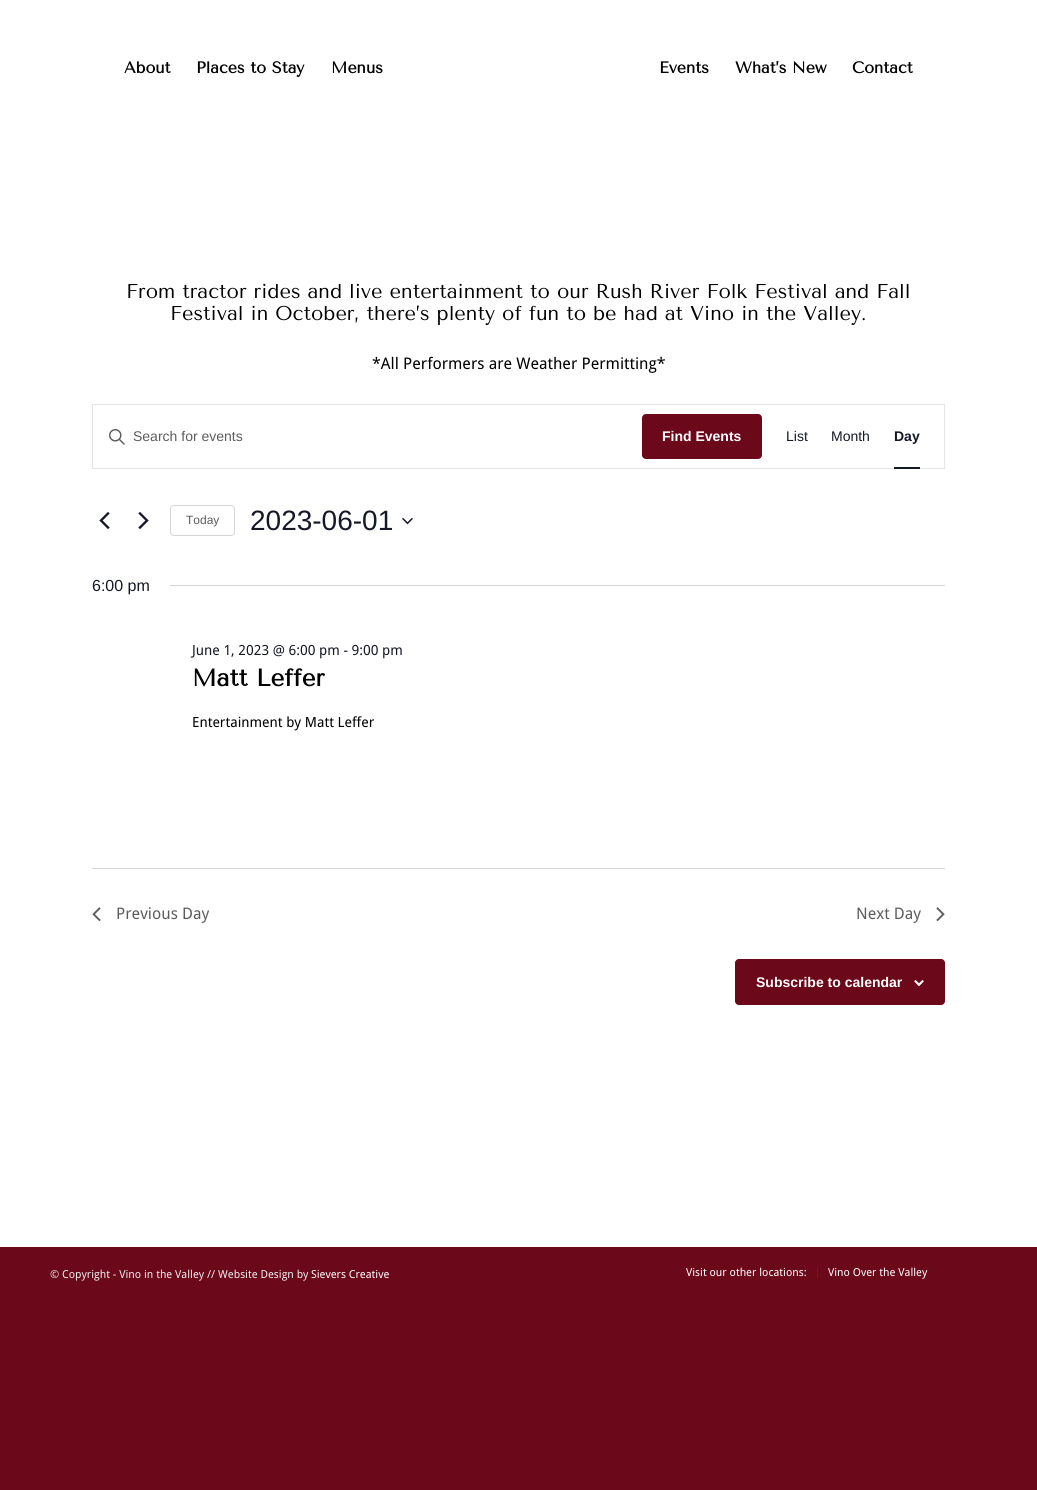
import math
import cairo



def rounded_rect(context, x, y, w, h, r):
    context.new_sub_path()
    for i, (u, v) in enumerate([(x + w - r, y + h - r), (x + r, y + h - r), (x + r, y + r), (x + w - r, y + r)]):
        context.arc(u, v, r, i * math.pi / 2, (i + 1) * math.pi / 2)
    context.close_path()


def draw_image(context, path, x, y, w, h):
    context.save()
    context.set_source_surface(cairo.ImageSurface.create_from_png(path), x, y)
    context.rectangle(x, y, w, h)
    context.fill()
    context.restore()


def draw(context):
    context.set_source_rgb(107 / 255, 8 / 255, 26 / 255)
    context.paint()
    context.set_source_rgb(1, 1, 1)
    context.rectangle(0, 0, 1037, 1247)
    context.fill()
    context.rectangle(92.5, 404.5, 852, 64)
    context.set_source_rgb(228 / 255, 228 / 255, 228 / 255)
    context.set_line_width(1)
    context.stroke()
    draw_image(context, "images/1.png", 109, 429, 16, 16)
    context.set_source_rgb(107 / 255, 8 / 255, 26 / 255)
    rounded_rect(context, 642, 414, 120, 45, 4)
    context.fill()
    context.set_source_rgb(20 / 255, 24 / 255, 39 / 255)
    context.rectangle(894, 467, 26, 2)
    context.fill()
    draw_image(context, "images/2.png", 99, 511, 11, 19)
    draw_image(context, "images/3.png", 138, 511, 11, 19)
    rounded_rect(context, 170.5, 505.5, 64, 30, 3.5)
    context.set_source_rgb(213 / 255, 213 / 255, 213 / 255)
    context.stroke()
    draw_image(context, "images/4.png", 402, 517, 11, 8)
    context.rectangle(170, 585, 775, 1)
    context.fill()
    context.rectangle(92, 868, 853, 1)
    context.fill()
    draw_image(context, "images/5.png", 92, 907, 9, 14)
    draw_image(context, "images/6.png", 936, 907, 9, 14)
    context.set_source_rgb(107 / 255, 8 / 255, 26 / 255)
    rounded_rect(context, 735.5, 959.5, 209, 45, 3.5)
    context.fill_preserve()
    context.stroke()
    draw_image(context, "images/7.png", 914, 980, 10, 6)
    context.set_source_rgb(51 / 255, 51 / 255, 51 / 255)
    context.rectangle(817, 1268, 1, 10)
    context.fill()
    context.select_font_face("Tenor Sans", cairo.FontSlant.NORMAL, cairo.FontWeight.BOLD)
    context.set_font_size(16)
    context.set_source_rgb(0, 0, 0)
    context.move_to(124, 73)
    context.show_text("About")
    context.move_to(196, 73)
    context.show_text("Places to Stay")
    context.move_to(331, 73)
    context.show_text("Menus")
    context.move_to(659, 73)
    context.show_text("Events")
    context.move_to(735, 73)
    context.show_text("What’s New")
    context.move_to(852, 73)
    context.show_text("Contact")
    context.select_font_face("Tenor Sans")
    context.set_font_size(20)
    context.move_to(126, 298)
    context.show_text("From tractor rides and live entertainment to our Rush River Folk Festival and Fall")
    context.move_to(170, 320)
    context.show_text("Festival in October, there’s plenty of fun to be had at Vino in the Valley.")
    context.select_font_face("Droid Sans")
    context.set_font_size(16)
    context.move_to(372, 369)
    context.show_text("*All Performers are Weather Permitting*")
    context.select_font_face("Liberation Sans")
    context.set_font_size(14)
    context.set_source_rgb(93 / 255, 93 / 255, 93 / 255)
    context.move_to(133, 441)
    context.show_text("Search for events")
    context.select_font_face("Liberation Sans", cairo.FontSlant.NORMAL, cairo.FontWeight.BOLD)
    context.set_source_rgb(1, 1, 1)
    context.move_to(662, 441)
    context.show_text("Find Events")
    context.select_font_face("Liberation Sans")
    context.set_source_rgb(20 / 255, 24 / 255, 39 / 255)
    context.move_to(786, 441)
    context.show_text("List")
    context.move_to(831, 441)
    context.show_text("Month")
    context.select_font_face("Liberation Sans", cairo.FontSlant.NORMAL, cairo.FontWeight.BOLD)
    context.move_to(894, 441)
    context.show_text("Day")
    context.select_font_face("Liberation Sans")
    context.set_font_size(12)
    context.set_source_rgb(93 / 255, 93 / 255, 93 / 255)
    context.move_to(186, 524)
    context.show_text("Today")
    context.set_font_size(28)
    context.set_source_rgb(20 / 255, 24 / 255, 39 / 255)
    context.move_to(250, 530)
    context.show_text("2023-06-01")
    context.set_font_size(16)
    context.move_to(92, 591)
    context.show_text("6:00 pm")
    context.select_font_face("Droid Sans")
    context.set_font_size(14)
    context.move_to(192, 655)
    context.show_text("June 1, 2023 @ 6:00 pm - 9:00 pm")
    context.select_font_face("Tenor Sans", cairo.FontSlant.NORMAL, cairo.FontWeight.BOLD)
    context.set_font_size(24)
    context.set_source_rgb(0, 0, 0)
    context.move_to(192, 686)
    context.show_text("Matt Leffer")
    context.select_font_face("Droid Sans")
    context.set_font_size(14)
    context.move_to(192, 727)
    context.show_text("Entertainment by Matt Leffer")
    context.set_font_size(16)
    context.set_source_rgb(93 / 255, 93 / 255, 93 / 255)
    context.move_to(116, 919)
    context.show_text("Previous Day")
    context.move_to(856, 919)
    context.show_text("Next Day")
    context.select_font_face("Liberation Sans", cairo.FontSlant.NORMAL, cairo.FontWeight.BOLD)
    context.set_font_size(14)
    context.set_source_rgb(1, 1, 1)
    context.move_to(756, 987)
    context.show_text("Subscribe to calendar")
    context.select_font_face("Droid Sans")
    context.set_font_size(11)
    context.set_source_rgb(238 / 255, 238 / 255, 238 / 255)
    context.move_to(50, 1278)
    context.show_text("© Copyright - Vino in the Valley // Website Design by")
    context.set_source_rgb(1, 1, 1)
    context.move_to(311, 1278)
    context.show_text("Sievers Creative")
    context.move_to(686, 1276)
    context.show_text("Visit our other locations:")
    context.move_to(828, 1276)
    context.show_text("Vino Over the Valley")


surface = cairo.ImageSurface(cairo.Format.RGB24, 1037, 1490)
context = cairo.Context(surface)
options = cairo.FontOptions()
options.set_hint_metrics(cairo.HintMetrics.OFF)
options.set_hint_style(cairo.HintStyle.NONE)
context.set_font_options(options)
context.set_miter_limit(4)
draw(context)
surface.write_to_png("out.png")
